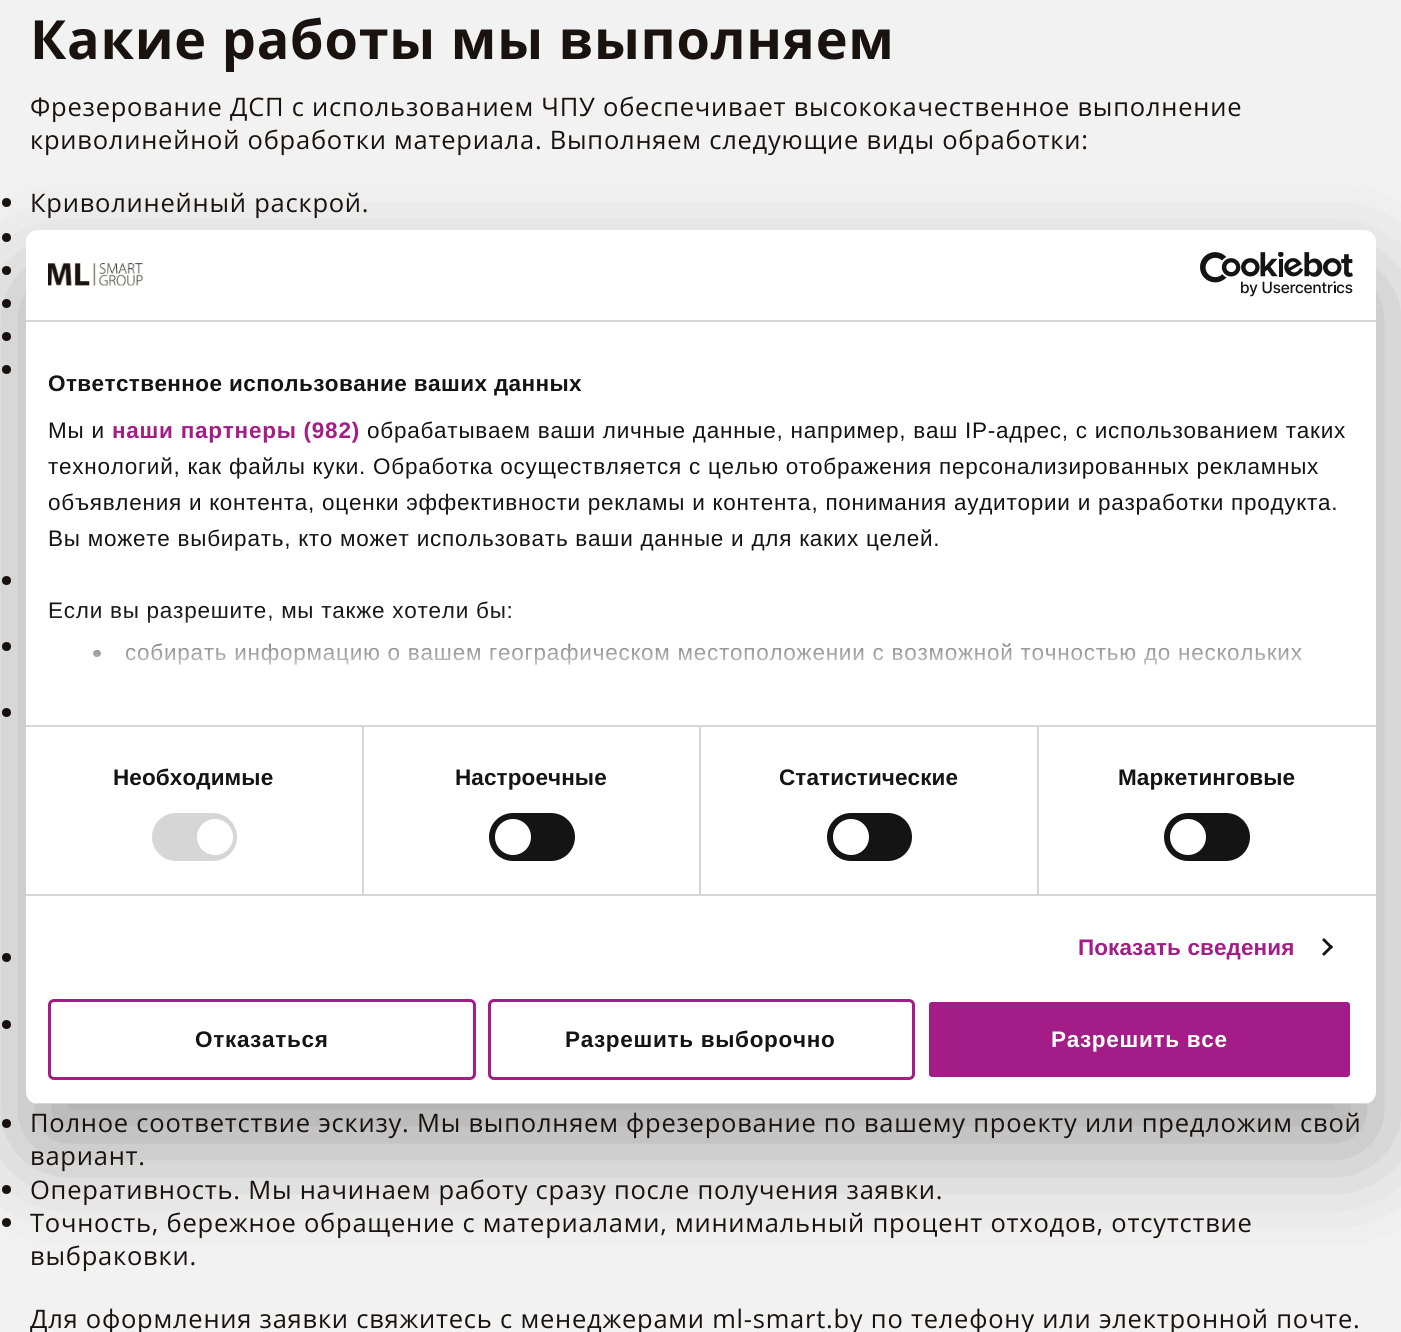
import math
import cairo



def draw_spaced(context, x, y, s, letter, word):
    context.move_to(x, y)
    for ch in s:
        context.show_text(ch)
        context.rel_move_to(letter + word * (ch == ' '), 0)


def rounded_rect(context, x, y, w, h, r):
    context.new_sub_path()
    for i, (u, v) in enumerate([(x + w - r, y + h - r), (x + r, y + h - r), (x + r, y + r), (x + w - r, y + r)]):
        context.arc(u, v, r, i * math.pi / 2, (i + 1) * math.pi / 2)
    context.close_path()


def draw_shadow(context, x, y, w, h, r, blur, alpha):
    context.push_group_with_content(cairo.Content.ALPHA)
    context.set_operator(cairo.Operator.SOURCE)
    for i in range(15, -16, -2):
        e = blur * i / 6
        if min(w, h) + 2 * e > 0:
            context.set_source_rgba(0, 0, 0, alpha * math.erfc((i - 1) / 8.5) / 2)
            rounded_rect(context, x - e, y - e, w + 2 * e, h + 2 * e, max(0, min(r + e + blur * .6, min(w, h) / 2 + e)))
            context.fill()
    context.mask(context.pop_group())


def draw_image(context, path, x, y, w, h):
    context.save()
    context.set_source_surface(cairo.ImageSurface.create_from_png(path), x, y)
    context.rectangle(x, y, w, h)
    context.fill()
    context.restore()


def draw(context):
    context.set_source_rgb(242 / 255, 242 / 255, 242 / 255)
    context.paint()
    context.set_source_rgb(26 / 255, 18 / 255, 15 / 255)
    context.arc(6.5, 202.5, 4.5, 0, 2 * math.pi)
    context.fill()
    context.arc(6.5, 237.5, 4.5, 0, 2 * math.pi)
    context.fill()
    context.arc(6.5, 270.5, 4.5, 0, 2 * math.pi)
    context.fill()
    context.arc(6.5, 303.5, 4.5, 0, 2 * math.pi)
    context.fill()
    context.arc(6.5, 336.5, 4.5, 0, 2 * math.pi)
    context.fill()
    context.arc(6.5, 369.5, 4.5, 0, 2 * math.pi)
    context.fill()
    context.arc(6.5, 580.5, 4.5, 0, 2 * math.pi)
    context.fill()
    context.arc(6.5, 646.5, 4.5, 0, 2 * math.pi)
    context.fill()
    context.arc(6.5, 712.5, 4.5, 0, 2 * math.pi)
    context.fill()
    context.arc(6.5, 957.5, 4.5, 0, 2 * math.pi)
    context.fill()
    context.arc(6.5, 1024.5, 4.5, 0, 2 * math.pi)
    context.fill()
    context.arc(6.5, 1123.5, 4.5, 0, 2 * math.pi)
    context.fill()
    context.arc(6.5, 1189.5, 4.5, 0, 2 * math.pi)
    context.fill()
    context.arc(6.5, 1222.5, 4.5, 0, 2 * math.pi)
    context.fill()
    context.set_source_rgb(0, 0, 0)
    draw_shadow(context, 26, 278, 1350, 874, 12, 51, 0.3)
    context.set_source_rgb(1, 1, 1)
    rounded_rect(context, 26, 230, 1350, 874, 12)
    context.fill()
    context.set_source_rgb(214 / 255, 214 / 255, 214 / 255)
    context.rectangle(26, 320, 1350, 2)
    context.fill()
    draw_image(context, "images/1.png", 48, 263, 95, 23)
    draw_image(context, "images/2.png", 1200, 252, 153, 45)
    context.rectangle(362, 726, 2, 168)
    context.fill()
    context.rectangle(699, 726, 2, 168)
    context.fill()
    context.rectangle(1037, 726, 2, 168)
    context.fill()
    context.rectangle(26, 725, 1350, 2)
    context.fill()
    context.set_source_rgb(20 / 255, 20 / 255, 20 / 255)
    rounded_rect(context, 93, 650, 8, 7, 3.5)
    context.fill()
    context.set_source_rgb(214 / 255, 214 / 255, 214 / 255)
    context.rectangle(26, 894, 1350, 2)
    context.fill()
    rounded_rect(context, 152, 813, 85, 48, 24)
    context.fill()
    context.set_source_rgb(1, 1, 1)
    context.arc(215, 837, 18, 0, 2 * math.pi)
    context.fill()
    context.set_source_rgb(20 / 255, 20 / 255, 20 / 255)
    rounded_rect(context, 489, 813, 86, 48, 24)
    context.fill()
    context.set_source_rgb(1, 1, 1)
    context.arc(513, 837, 18, 0, 2 * math.pi)
    context.fill()
    context.set_source_rgb(20 / 255, 20 / 255, 20 / 255)
    rounded_rect(context, 827, 813, 85, 48, 24)
    context.fill()
    context.set_source_rgb(1, 1, 1)
    context.arc(851, 837, 18, 0, 2 * math.pi)
    context.fill()
    context.set_source_rgb(20 / 255, 20 / 255, 20 / 255)
    rounded_rect(context, 1164, 813, 86, 48, 24)
    context.fill()
    context.set_source_rgb(1, 1, 1)
    context.arc(1188, 837, 18, 0, 2 * math.pi)
    context.fill()
    context.set_source_rgb(20 / 255, 20 / 255, 20 / 255)
    context.new_path()
    context.move_to(1324, 938)
    context.line_to(1333, 947)
    context.line_to(1331, 949)
    context.line_to(1322, 940)
    context.close_path()
    context.fill()
    context.new_path()
    context.move_to(1331, 945)
    context.line_to(1333, 947)
    context.line_to(1324, 956)
    context.line_to(1322, 954)
    context.close_path()
    context.fill()
    context.save()
    rounded_rect(context, 26, 230, 1350, 874, 12)
    context.clip()
    context.set_source_rgb(214 / 255, 214 / 255, 214 / 255)
    context.rectangle(26, 1103, 1350, 1)
    context.fill()
    context.restore()
    rounded_rect(context, 49.5, 1000.5, 425, 78, 4.5)
    context.set_source_rgb(163 / 255, 28 / 255, 135 / 255)
    context.set_line_width(3)
    context.stroke()
    rounded_rect(context, 489.5, 1000.5, 424, 78, 4.5)
    context.stroke()
    rounded_rect(context, 927.5, 1000.5, 424, 78, 4.5)
    context.fill_preserve()
    context.set_source_rgb(1, 1, 1)
    context.stroke()
    context.select_font_face("Open Sans", cairo.FontSlant.NORMAL, cairo.FontWeight.BOLD)
    context.set_font_size(54)
    context.set_source_rgb(26 / 255, 18 / 255, 15 / 255)
    draw_spaced(context, 30, 59, "Какие работы мы выполняем", 0.77, 0)
    context.select_font_face("Open Sans")
    context.set_font_size(25.5)
    draw_spaced(context, 30, 116, "Фрезерование ДСП с использованием ЧПУ обеспечивает высококачественное выполнение", 0.77, 0)
    draw_spaced(context, 30, 149, "криволинейной обработки материала. Выполняем следующие виды обработки:", 0.77, 0)
    draw_spaced(context, 30, 212, "Криволинейный раскрой.", 0.77, 0)
    draw_spaced(context, 30, 1132, "Полное соответствие эскизу. Мы выполняем фрезерование по вашему проекту или предложим свой", 0.77, 0)
    draw_spaced(context, 30, 1165, "вариант.", 0.77, 0)
    draw_spaced(context, 30, 1199, "Оперативность. Мы начинаем работу сразу после получения заявки.", 0.77, 0)
    draw_spaced(context, 30, 1232, "Точность, бережное обращение с материалами, минимальный процент отходов, отсутствие", 0.77, 0)
    draw_spaced(context, 30, 1265, "выбраковки.", 0.77, 0)
    draw_spaced(context, 30, 1328, "Для оформления заявки свяжитесь с менеджерами ml-smart.by по телефону или электронной почте.", 0.77, 0)
    context.select_font_face("Liberation Sans", cairo.FontSlant.NORMAL, cairo.FontWeight.BOLD)
    context.set_font_size(22.5)
    context.set_source_rgb(20 / 255, 20 / 255, 20 / 255)
    draw_spaced(context, 48, 391, "Ответственное использование ваших данных", 0.4, 0)
    context.select_font_face("Liberation Sans")
    draw_spaced(context, 48, 438, "Мы и", 0.75, 0)
    context.select_font_face("Liberation Sans", cairo.FontSlant.NORMAL, cairo.FontWeight.BOLD)
    context.set_source_rgb(163 / 255, 28 / 255, 135 / 255)
    draw_spaced(context, 112, 438, "наши партнеры (982)", 0.75, 0)
    context.select_font_face("Liberation Sans")
    context.set_source_rgb(20 / 255, 20 / 255, 20 / 255)
    draw_spaced(context, 367, 438, "обрабатываем ваши личные данные, например, ваш IP-адрес, с использованием таких", 0.75, 0)
    draw_spaced(context, 48, 474, "технологий, как файлы куки. Обработка осуществляется с целью отображения персонализированных рекламных", 0.75, 0)
    draw_spaced(context, 48, 510, "объявления и контента, оценки эффективности рекламы и контента, понимания аудитории и разработки продукта.", 0.75, 0)
    draw_spaced(context, 48, 546, "Вы можете выбирать, кто может использовать ваши данные и для каких целей.", 0.75, 0)
    draw_spaced(context, 48, 618, "Если вы разрешите, мы также хотели бы:", 0.75, 0)
    draw_spaced(context, 125, 660, "собирать информацию о вашем географическом местоположении с возможной точностью до нескольких", 0.75, 0)
    gradient = cairo.LinearGradient(691, 724, 691, 611)
    gradient.add_color_stop_rgba(0, 1, 1, 1, 1)
    gradient.add_color_stop_rgba(0.5, 1, 1, 1, 0.8)
    gradient.add_color_stop_rgba(1, 1, 1, 1, 0)
    context.set_source(gradient)
    context.rectangle(49, 613, 1253, 52)
    context.fill()
    context.select_font_face("Liberation Sans", cairo.FontSlant.NORMAL, cairo.FontWeight.BOLD)
    context.set_source_rgb(20 / 255, 20 / 255, 20 / 255)
    draw_spaced(context, 113, 785, "Необходимые", 0.1, 0)
    draw_spaced(context, 455, 785, "Настроечные", 0.1, 0)
    draw_spaced(context, 779, 785, "Статистические", 0.1, 0)
    draw_spaced(context, 1118, 785, "Маркетинговые", 0.1, 0)
    context.set_source_rgb(163 / 255, 28 / 255, 135 / 255)
    draw_spaced(context, 1078, 955, "Показать сведения", 0.1, 0)
    context.set_source_rgb(20 / 255, 20 / 255, 20 / 255)
    draw_spaced(context, 195, 1047, "Отказаться", 0.7, 0)
    draw_spaced(context, 565, 1047, "Разрешить выборочно", 0.7, 0)
    context.set_source_rgb(1, 1, 1)
    draw_spaced(context, 1051, 1047, "Разрешить все", 0.7, 0)


surface = cairo.ImageSurface(cairo.Format.RGB24, 1401, 1332)
context = cairo.Context(surface)
options = cairo.FontOptions()
options.set_hint_metrics(cairo.HintMetrics.OFF)
options.set_hint_style(cairo.HintStyle.NONE)
context.set_font_options(options)
context.set_miter_limit(4)
draw(context)
surface.write_to_png("out.png")
